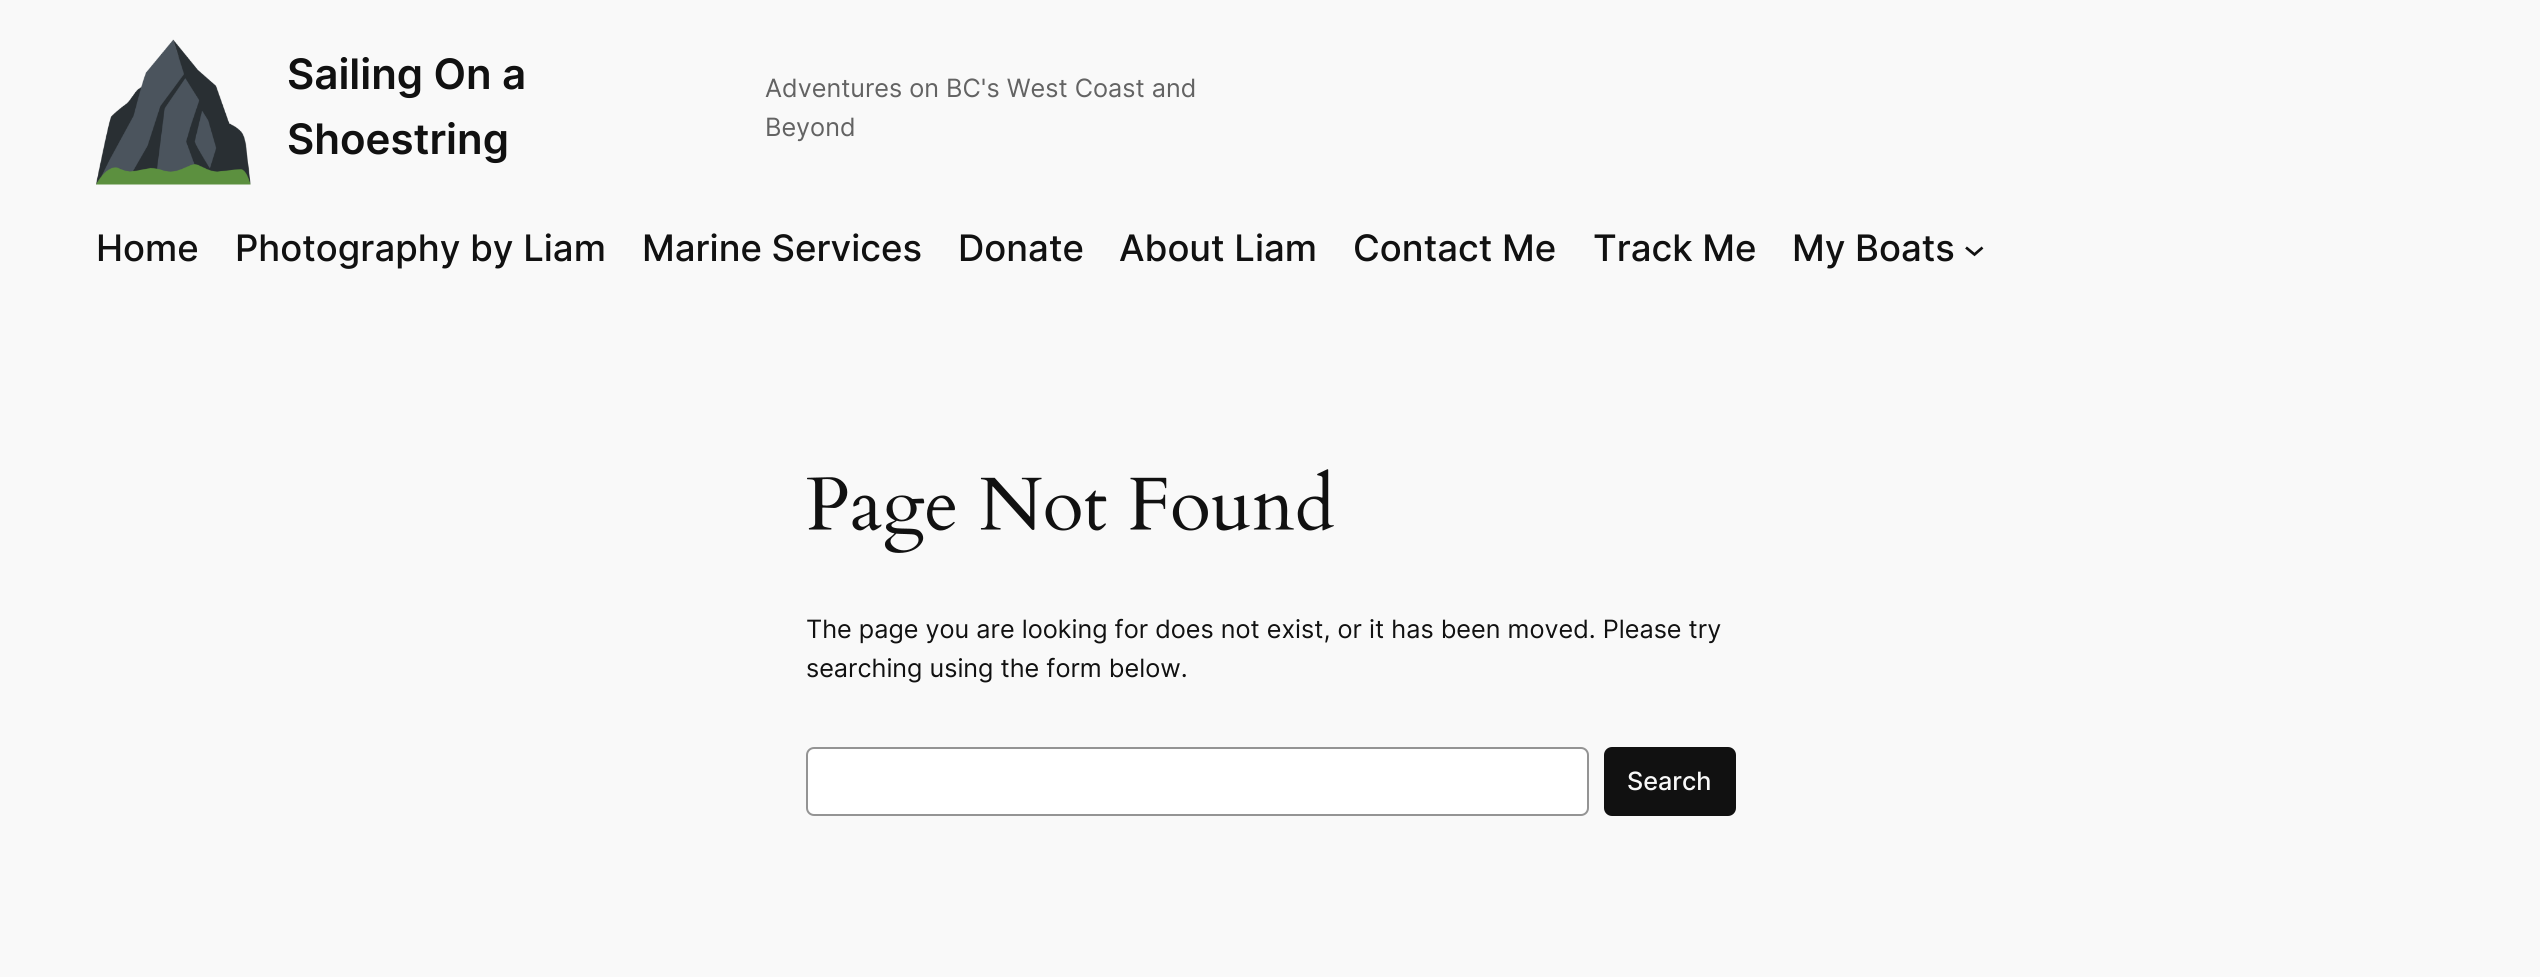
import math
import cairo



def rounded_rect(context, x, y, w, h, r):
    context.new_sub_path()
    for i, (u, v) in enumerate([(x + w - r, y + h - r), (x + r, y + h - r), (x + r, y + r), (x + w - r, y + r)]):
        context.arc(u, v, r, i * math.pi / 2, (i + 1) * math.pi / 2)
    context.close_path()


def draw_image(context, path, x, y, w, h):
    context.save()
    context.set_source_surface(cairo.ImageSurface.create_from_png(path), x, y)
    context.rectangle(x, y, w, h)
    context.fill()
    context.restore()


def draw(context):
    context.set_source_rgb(249 / 255, 249 / 255, 249 / 255)
    context.paint()
    draw_image(context, "images/1.png", 96, 39, 155, 146)
    context.new_path()
    context.move_to(1966, 247.5)
    context.line_to(1974.5, 254.5)
    context.line_to(1982.5, 247.5)
    context.set_source_rgb(17 / 255, 17 / 255, 17 / 255)
    context.set_line_width(2.7)
    context.stroke()
    draw_image(context, "images/2.png", 807, 469, 527, 84)
    context.set_source_rgb(1, 1, 1)
    rounded_rect(context, 807, 748, 781, 67, 7)
    context.fill_preserve()
    context.set_source_rgb(148 / 255, 148 / 255, 148 / 255)
    context.set_line_width(2)
    context.stroke()
    context.set_source_rgb(17 / 255, 17 / 255, 17 / 255)
    rounded_rect(context, 1604, 747, 132, 69, 8)
    context.fill()
    context.select_font_face("Inter SemiBold")
    context.set_font_size(42)
    context.move_to(287, 89)
    context.show_text("Sailing On a")
    context.move_to(287, 154)
    context.show_text("Shoestring")
    context.select_font_face("Inter")
    context.set_font_size(25.2)
    context.set_source_rgb(99 / 255, 99 / 255, 99 / 255)
    context.move_to(765, 97)
    context.show_text("Adventures on BC's West Coast and")
    context.move_to(765, 136)
    context.show_text("Beyond")
    context.select_font_face("Inter Medium")
    context.set_font_size(36.5)
    context.set_source_rgb(17 / 255, 17 / 255, 17 / 255)
    context.move_to(96, 261)
    context.show_text("Home")
    context.move_to(235, 261)
    context.show_text("Photography by Liam")
    context.move_to(642, 261)
    context.show_text("Marine Services")
    context.move_to(958, 261)
    context.show_text("Donate")
    context.move_to(1119, 261)
    context.show_text("About Liam")
    context.move_to(1353, 261)
    context.show_text("Contact Me")
    context.move_to(1593, 261)
    context.show_text("Track Me")
    context.move_to(1792, 261)
    context.show_text("My Boats")
    context.select_font_face("Inter")
    context.set_font_size(25.2)
    context.move_to(806, 638)
    context.show_text("The page you are looking for does not exist, or it has been moved. Please try")
    context.move_to(806, 677)
    context.show_text("searching using the form below.")
    context.select_font_face("Inter Medium")
    context.set_source_rgb(249 / 255, 249 / 255, 249 / 255)
    context.move_to(1627, 790)
    context.show_text("Search")


surface = cairo.ImageSurface(cairo.Format.RGB24, 2540, 977)
context = cairo.Context(surface)
options = cairo.FontOptions()
options.set_hint_metrics(cairo.HintMetrics.OFF)
options.set_hint_style(cairo.HintStyle.NONE)
context.set_font_options(options)
context.set_miter_limit(4)
draw(context)
surface.write_to_png("out.png")
